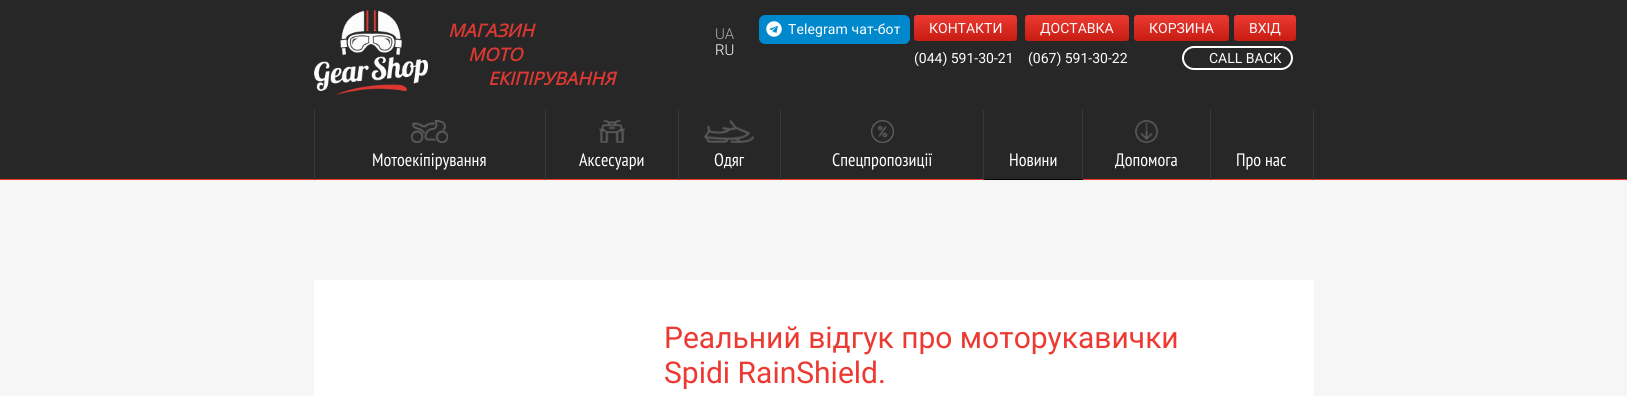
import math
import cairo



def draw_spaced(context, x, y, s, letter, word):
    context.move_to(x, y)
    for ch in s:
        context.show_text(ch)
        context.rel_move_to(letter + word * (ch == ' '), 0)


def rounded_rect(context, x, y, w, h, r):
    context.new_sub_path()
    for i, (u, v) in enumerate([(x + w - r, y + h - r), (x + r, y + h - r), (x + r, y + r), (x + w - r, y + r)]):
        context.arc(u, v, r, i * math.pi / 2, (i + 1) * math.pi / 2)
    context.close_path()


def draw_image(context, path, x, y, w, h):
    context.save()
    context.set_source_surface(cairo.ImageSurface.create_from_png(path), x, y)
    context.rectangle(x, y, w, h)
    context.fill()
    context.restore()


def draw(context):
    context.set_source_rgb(246 / 255, 246 / 255, 246 / 255)
    context.paint()
    context.set_source_rgb(39 / 255, 39 / 255, 39 / 255)
    context.rectangle(0, 0, 1627, 179)
    context.fill()
    draw_image(context, "images/1.png", 314, 10, 114, 85)
    context.set_source_rgb(0, 136 / 255, 204 / 255)
    rounded_rect(context, 759, 15, 151, 29, 6)
    context.fill()
    draw_image(context, "images/2.png", 766, 21, 16, 16)
    gradient = cairo.LinearGradient(966, 15, 966, 41)
    gradient.add_color_stop_rgba(0, 236 / 255, 58 / 255, 50 / 255, 1)
    gradient.add_color_stop_rgba(1, 199 / 255, 28 / 255, 18 / 255, 1)
    context.set_source(gradient)
    rounded_rect(context, 914, 15, 103, 26, 3)
    context.fill()
    gradient = cairo.LinearGradient(1077, 15, 1077, 41)
    gradient.add_color_stop_rgba(0, 236 / 255, 58 / 255, 50 / 255, 1)
    gradient.add_color_stop_rgba(1, 199 / 255, 28 / 255, 18 / 255, 1)
    context.set_source(gradient)
    rounded_rect(context, 1025, 15, 104, 26, 3)
    context.fill()
    gradient = cairo.LinearGradient(1182, 15, 1182, 41)
    gradient.add_color_stop_rgba(0, 236 / 255, 58 / 255, 50 / 255, 1)
    gradient.add_color_stop_rgba(1, 199 / 255, 28 / 255, 18 / 255, 1)
    context.set_source(gradient)
    rounded_rect(context, 1134, 15, 95, 26, 3)
    context.fill()
    gradient = cairo.LinearGradient(1265, 15, 1265, 41)
    gradient.add_color_stop_rgba(0, 236 / 255, 58 / 255, 50 / 255, 1)
    gradient.add_color_stop_rgba(1, 199 / 255, 28 / 255, 18 / 255, 1)
    context.set_source(gradient)
    rounded_rect(context, 1234, 15, 62, 26, 3)
    context.fill()
    rounded_rect(context, 1183, 47, 109, 22, 11)
    context.set_source_rgb(1, 1, 1)
    context.stroke()
    context.set_source_rgb(236 / 255, 58 / 255, 50 / 255)
    context.rectangle(0, 179, 1627, 1)
    context.fill()
    context.set_source_rgb(57 / 255, 57 / 255, 57 / 255)
    context.rectangle(314, 110, 1, 70)
    context.fill()
    context.rectangle(545, 110, 1, 70)
    context.fill()
    draw_image(context, "images/3.png", 411, 120, 37, 23)
    context.rectangle(678, 110, 1, 70)
    context.fill()
    draw_image(context, "images/4.png", 599, 120, 26, 23)
    context.rectangle(780, 110, 1, 70)
    context.fill()
    draw_image(context, "images/5.png", 704, 120, 50, 23)
    context.rectangle(983, 110, 1, 70)
    context.fill()
    draw_image(context, "images/6.png", 871, 120, 23, 23)
    context.rectangle(1082, 110, 1, 70)
    context.fill()
    context.set_source_rgb(0, 0, 0)
    context.rectangle(984, 179, 99, 1)
    context.fill()
    context.set_source_rgb(57 / 255, 57 / 255, 57 / 255)
    context.rectangle(1210, 110, 1, 70)
    context.fill()
    draw_image(context, "images/7.png", 1135, 120, 23, 23)
    context.rectangle(1313, 110, 1, 70)
    context.fill()
    context.set_source_rgb(1, 1, 1)
    context.rectangle(314, 280, 1000, 116)
    context.fill()
    context.select_font_face("Open Sans", cairo.FontSlant.ITALIC, cairo.FontWeight.BOLD)
    context.set_font_size(18)
    context.set_source_rgb(221 / 255, 57 / 255, 50 / 255)
    context.move_to(448, 37)
    context.show_text("МАГАЗИН")
    context.move_to(468, 61)
    context.show_text("MОТО")
    context.move_to(488, 85)
    context.show_text("ЕКІПІРУВАННЯ")
    context.select_font_face("Roboto Light")
    context.set_font_size(15)
    context.set_source_rgb(170 / 255, 170 / 255, 170 / 255)
    context.move_to(715, 39)
    context.show_text("UA")
    context.set_source_rgb(1, 1, 1)
    context.move_to(715, 55)
    context.show_text("RU")
    context.select_font_face("Roboto")
    context.set_font_size(14)
    draw_spaced(context, 788, 34, "Telegram чат-бот", 0.1, 0)
    context.set_source_rgb(249 / 255, 249 / 255, 249 / 255)
    context.move_to(929, 33)
    context.show_text("КОНТАКТИ")
    context.move_to(1040, 33)
    context.show_text("ДОСТАВКА")
    context.move_to(1149, 33)
    context.show_text("КОРЗИНА")
    context.move_to(1249, 33)
    context.show_text("ВХІД")
    context.set_source_rgb(1, 1, 1)
    context.move_to(914, 63)
    context.show_text("(044) 591-30-21")
    context.move_to(1028, 63)
    context.show_text("(067) 591-30-22")
    context.move_to(1209, 63)
    context.show_text("CALL BACK")
    context.select_font_face("PT Sans Narrow")
    context.set_font_size(18)
    context.move_to(372, 166)
    context.show_text("Мотоекіпірування")
    context.move_to(579, 166)
    context.show_text("Аксесуари")
    context.move_to(714, 166)
    context.show_text("Одяг")
    context.move_to(832, 166)
    context.show_text("Спецпропозиції")
    context.move_to(1009, 166)
    context.show_text("Новини")
    context.move_to(1115, 166)
    context.show_text("Допомога")
    context.move_to(1236, 166)
    context.show_text("Про нас")
    context.select_font_face("Roboto")
    context.set_font_size(30)
    context.set_source_rgb(236 / 255, 58 / 255, 50 / 255)
    context.move_to(664, 348)
    context.show_text("Реальний відгук про моторукавички")
    context.move_to(664, 383)
    context.show_text("Spidi RainShield.")


surface = cairo.ImageSurface(cairo.Format.RGB24, 1627, 396)
context = cairo.Context(surface)
options = cairo.FontOptions()
options.set_hint_metrics(cairo.HintMetrics.OFF)
options.set_hint_style(cairo.HintStyle.NONE)
context.set_font_options(options)
context.set_miter_limit(4)
draw(context)
surface.write_to_png("out.png")
